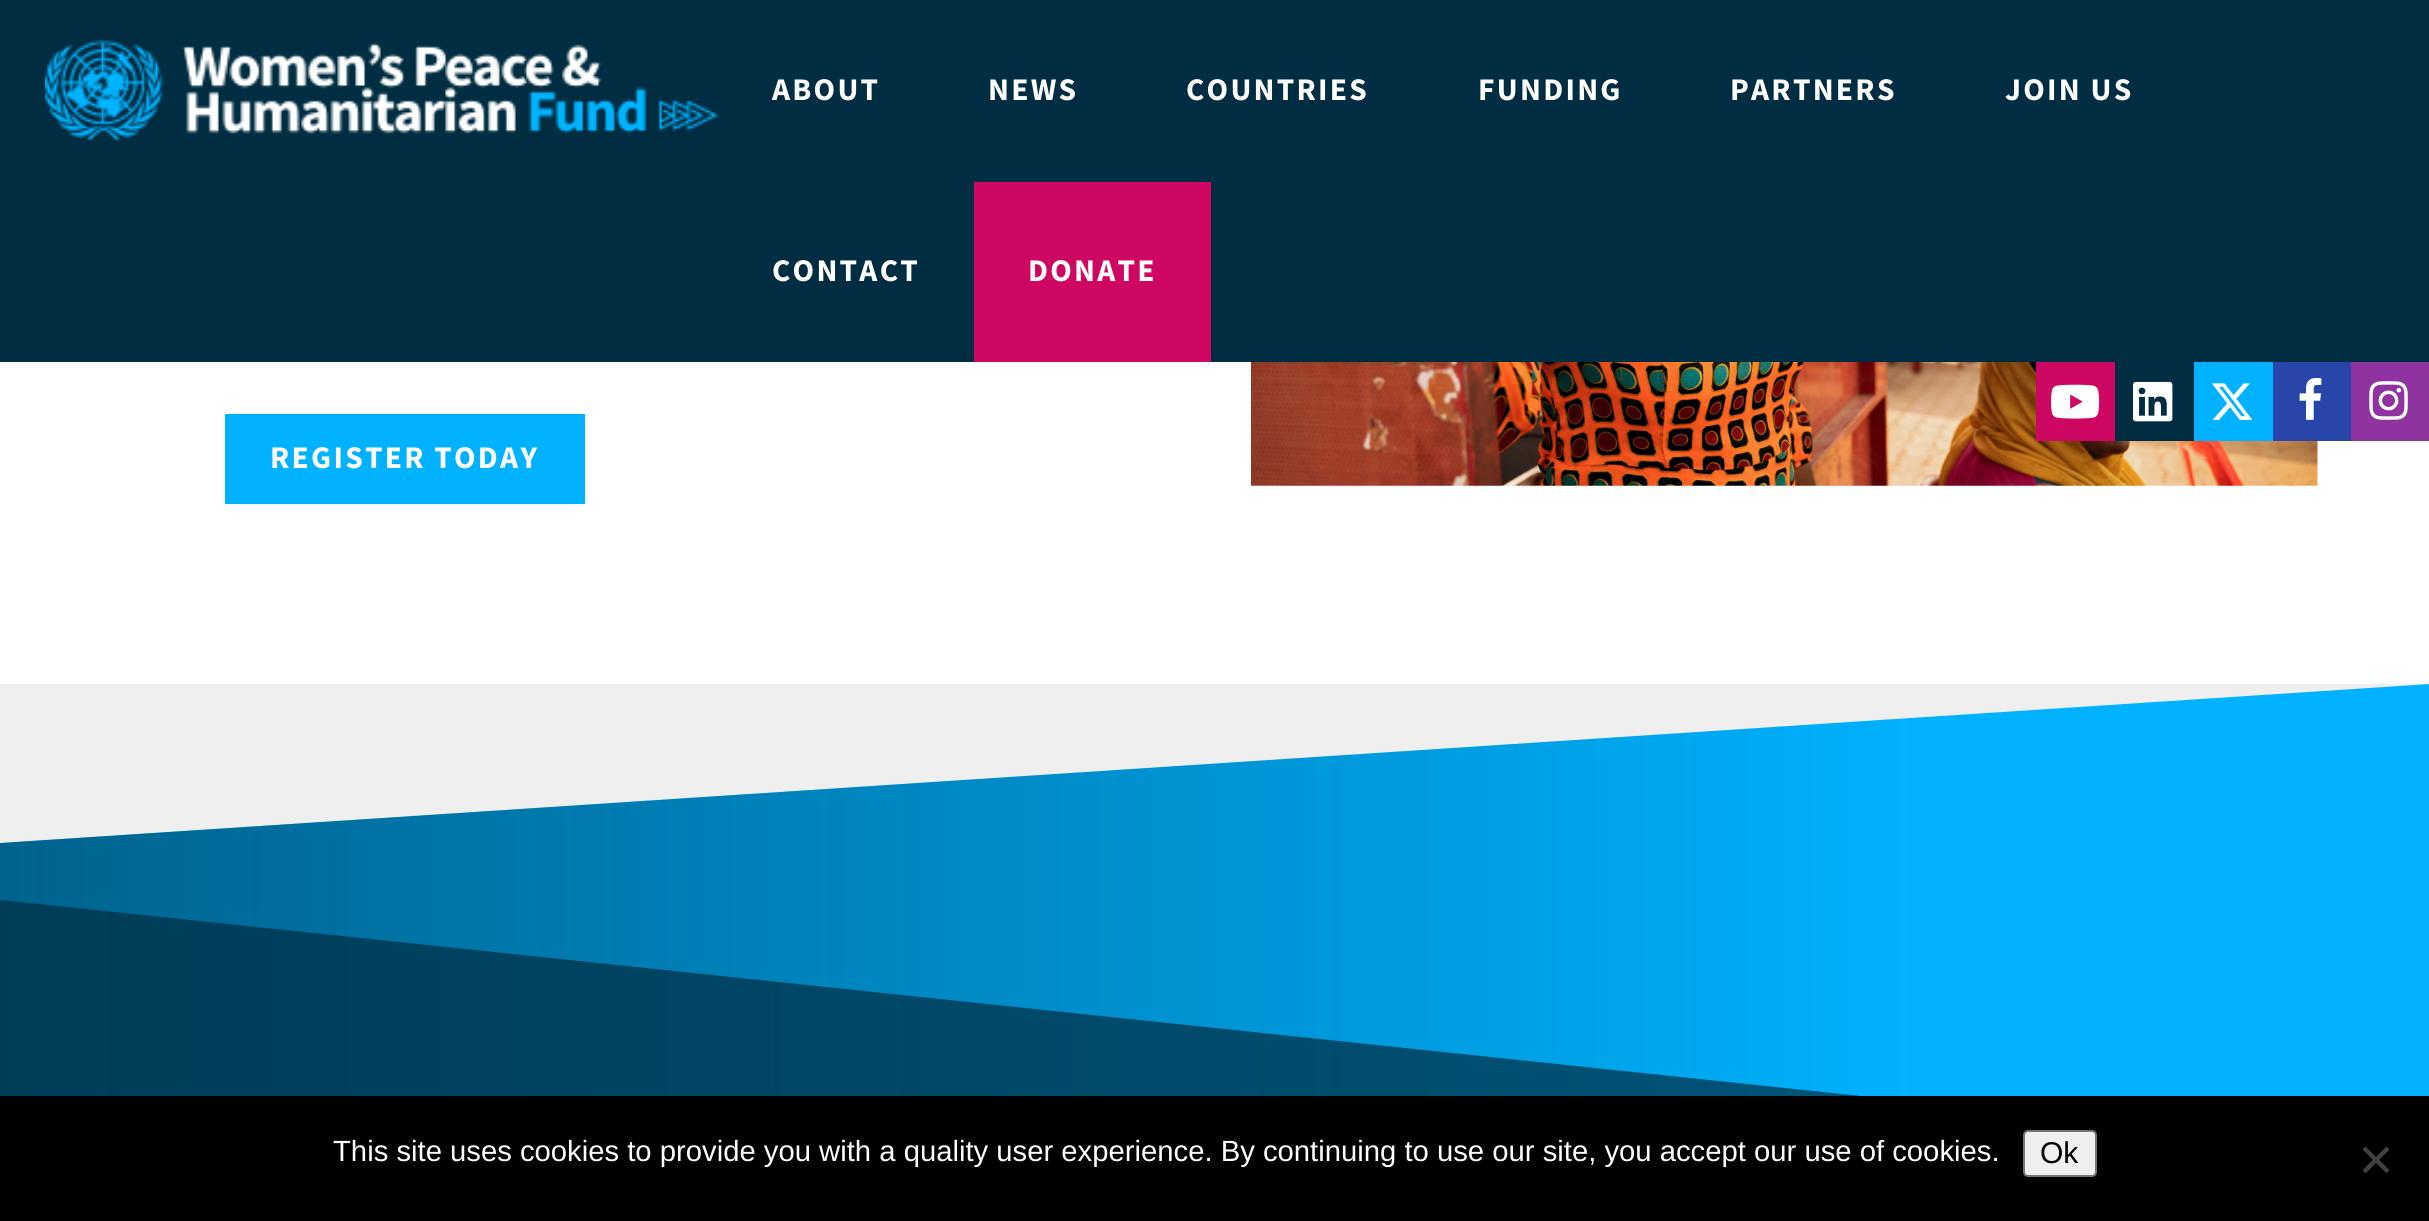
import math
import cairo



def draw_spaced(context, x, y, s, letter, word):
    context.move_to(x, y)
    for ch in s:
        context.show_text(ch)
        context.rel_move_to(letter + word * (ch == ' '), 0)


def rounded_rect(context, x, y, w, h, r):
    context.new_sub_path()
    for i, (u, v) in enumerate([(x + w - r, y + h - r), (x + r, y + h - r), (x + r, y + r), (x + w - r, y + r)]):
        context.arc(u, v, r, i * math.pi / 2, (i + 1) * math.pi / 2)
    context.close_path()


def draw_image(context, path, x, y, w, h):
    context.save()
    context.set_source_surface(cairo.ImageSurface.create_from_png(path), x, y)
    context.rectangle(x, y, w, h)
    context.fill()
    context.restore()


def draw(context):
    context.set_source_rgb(239 / 255, 239 / 255, 239 / 255)
    context.paint()
    context.set_source_rgb(0, 45 / 255, 65 / 255)
    context.rectangle(0, 0, 2429, 362)
    context.fill()
    draw_image(context, "images/1.png", 45, 40, 673, 101)
    context.set_source_rgb(206 / 255, 8 / 255, 98 / 255)
    context.rectangle(974, 182, 237, 180)
    context.fill()
    context.set_source_rgb(1, 1, 1)
    context.rectangle(0, 362, 2429, 322)
    context.fill()
    draw_image(context, "images/7.png", 1251, 362, 1067, 124)
    context.set_source_rgb(206 / 255, 8 / 255, 98 / 255)
    context.rectangle(2036, 362, 79, 79)
    context.fill()
    draw_image(context, "images/2.png", 2051, 384, 49, 35)
    context.set_source_rgb(0, 45 / 255, 65 / 255)
    context.rectangle(2115, 362, 79, 79)
    context.fill()
    draw_image(context, "images/3.png", 2133, 381, 40, 41)
    context.set_source_rgb(0, 178 / 255, 1)
    context.rectangle(2194, 362, 79, 79)
    context.fill()
    draw_image(context, "images/4.png", 2212, 383, 41, 37)
    context.set_source_rgb(40 / 255, 69 / 255, 169 / 255)
    context.rectangle(2273, 362, 78, 79)
    context.fill()
    draw_image(context, "images/5.png", 2299, 378, 23, 42)
    context.set_source_rgb(143 / 255, 51 / 255, 160 / 255)
    context.rectangle(2351, 362, 78, 79)
    context.fill()
    draw_image(context, "images/6.png", 2369, 381, 39, 39)
    context.set_source_rgb(0, 178 / 255, 1)
    context.rectangle(225, 414, 360, 90)
    context.fill()
    context.new_path()
    context.move_to(0, 843)
    context.line_to(0, 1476)
    context.line_to(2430, 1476)
    context.line_to(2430, 684)
    context.close_path()
    context.fill()
    gradient = cairo.LinearGradient(0, 1080, 1944, 1080)
    gradient.add_color_stop_rgba(0, 0, 45 / 255, 65 / 255, 0.6)
    gradient.add_color_stop_rgba(1, 0, 45 / 255, 65 / 255, 0)
    context.set_source(gradient)
    context.new_path()
    context.move_to(0, 843)
    context.line_to(0, 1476)
    context.line_to(1944, 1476)
    context.line_to(1944, 716)
    context.close_path()
    context.fill()
    context.set_source_rgba(0, 45 / 255, 65 / 255, 0.7)
    context.new_path()
    context.move_to(0, 900)
    context.line_to(0, 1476)
    context.line_to(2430, 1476)
    context.line_to(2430, 1156)
    context.close_path()
    context.fill()
    context.set_source_rgb(0, 0, 0)
    context.rectangle(0, 1096, 2429, 125)
    context.fill()
    context.set_source_rgb(239 / 255, 239 / 255, 239 / 255)
    rounded_rect(context, 2024, 1131, 72, 45, 4)
    context.fill_preserve()
    context.set_source_rgb(118 / 255, 118 / 255, 118 / 255)
    context.stroke()
    context.set_source_rgb(64 / 255, 64 / 255, 64 / 255)
    context.new_path()
    context.move_to(2386.5, 1146.5)
    context.line_to(2389.5, 1149.5)
    context.line_to(2365.5, 1173.5)
    context.line_to(2362.5, 1170)
    context.close_path()
    context.fill()
    context.new_path()
    context.move_to(2362.5, 1149.5)
    context.line_to(2365.5, 1146.5)
    context.line_to(2389.5, 1170)
    context.line_to(2386.5, 1173.5)
    context.close_path()
    context.fill()
    context.select_font_face("Source Sans Pro", cairo.FontSlant.NORMAL, cairo.FontWeight.BOLD)
    context.set_font_size(31.5)
    context.set_source_rgb(1, 1, 1)
    draw_spaced(context, 772, 100, "ABOUT", 2.25, 0)
    draw_spaced(context, 988, 100, "NEWS", 2.25, 0)
    draw_spaced(context, 1186, 100, "COUNTRIES", 2.25, 0)
    draw_spaced(context, 1478, 100, "FUNDING", 2.25, 0)
    draw_spaced(context, 1730, 100, "PARTNERS", 2.25, 0)
    draw_spaced(context, 2005, 100, "JOIN US", 2.25, 0)
    draw_spaced(context, 772, 281, "CONTACT", 2.25, 0)
    draw_spaced(context, 1028, 281, "DONATE", 2.25, 0)
    draw_spaced(context, 270, 468, "REGISTER TODAY", 2.25, 0)
    context.select_font_face("Liberation Sans")
    context.set_font_size(29.25)
    context.move_to(333, 1161)
    context.show_text("This site uses cookies to provide you with a quality user experience. By continuing to use our site, you accept our use of cookies.")
    context.set_font_size(30)
    context.set_source_rgb(0, 0, 0)
    context.move_to(2040, 1163)
    context.show_text("Ok")


surface = cairo.ImageSurface(cairo.Format.RGB24, 2429, 1221)
context = cairo.Context(surface)
options = cairo.FontOptions()
options.set_hint_metrics(cairo.HintMetrics.OFF)
options.set_hint_style(cairo.HintStyle.NONE)
context.set_font_options(options)
context.set_miter_limit(4)
draw(context)
surface.write_to_png("out.png")
